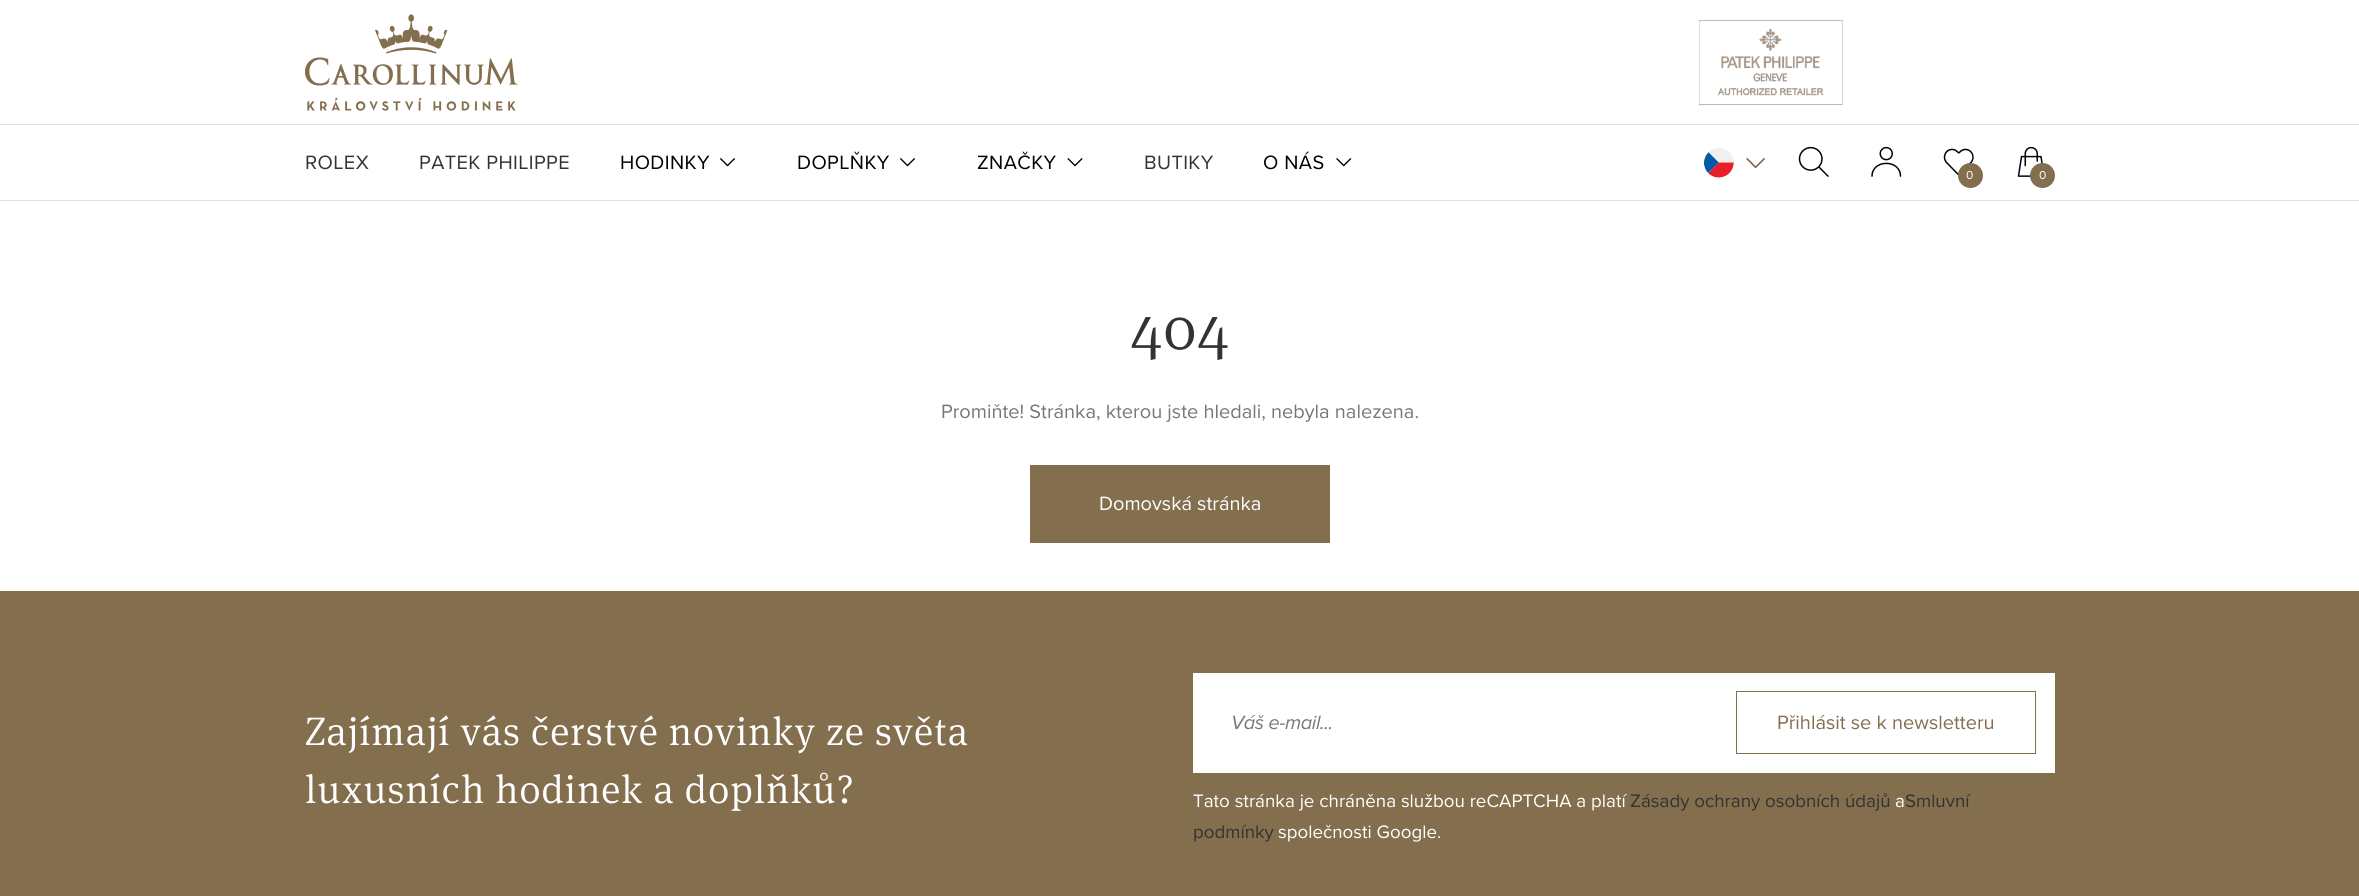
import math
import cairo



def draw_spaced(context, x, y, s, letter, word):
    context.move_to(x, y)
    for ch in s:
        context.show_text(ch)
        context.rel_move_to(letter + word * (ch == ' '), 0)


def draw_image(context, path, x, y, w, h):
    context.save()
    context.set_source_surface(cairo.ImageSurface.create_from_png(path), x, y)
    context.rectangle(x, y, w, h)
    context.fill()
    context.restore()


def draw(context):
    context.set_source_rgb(1, 1, 1)
    context.paint()
    context.set_source_rgb(225 / 255, 225 / 255, 225 / 255)
    context.rectangle(0, 200, 2359, 1)
    context.fill()
    context.rectangle(0, 124, 2359, 1)
    context.fill()
    draw_image(context, "images/1.png", 305, 14, 213, 97)
    draw_image(context, "images/2.png", 1699, 20, 144, 86)
    draw_image(context, "images/3.png", 720, 158, 15, 9)
    draw_image(context, "images/3.png", 900, 158, 15, 9)
    draw_image(context, "images/4.png", 1067, 158, 16, 9)
    draw_image(context, "images/5.png", 1336, 158, 16, 9)
    draw_image(context, "images/6.png", 1704, 148, 30, 30)
    draw_image(context, "images/7.png", 1746, 158, 19, 11)
    draw_image(context, "images/8.png", 1798, 146, 31, 31)
    draw_image(context, "images/9.png", 1871, 146, 31, 31)
    draw_image(context, "images/10.png", 1943, 148, 31, 28)
    context.set_source_rgb(131 / 255, 110 / 255, 78 / 255)
    context.arc(1970.5, 175.5, 12.5, 0, 2 * math.pi)
    context.fill()
    draw_image(context, "images/11.png", 2017, 146, 26, 31)
    context.arc(2042.5, 175.5, 12.5, 0, 2 * math.pi)
    context.fill()
    context.rectangle(1030, 465, 300, 78)
    context.fill()
    context.rectangle(0, 591, 2359, 305)
    context.fill()
    context.set_source_rgb(1, 1, 1)
    context.rectangle(1193, 673, 862, 100)
    context.fill()
    context.rectangle(1736.5, 691.5, 299, 62)
    context.set_source_rgb(131 / 255, 110 / 255, 78 / 255)
    context.set_line_width(1)
    context.stroke()
    context.select_font_face("Proxima Nova")
    context.set_font_size(20)
    context.set_source_rgb(51 / 255, 51 / 255, 51 / 255)
    draw_spaced(context, 305, 169, "ROLEX", 0.4, 0)
    draw_spaced(context, 419, 169, "PATEK PHILIPPE", 0.4, 0)
    context.set_source_rgb(0, 0, 0)
    draw_spaced(context, 620, 169, "HODINKY", 0.4, 0)
    draw_spaced(context, 797, 169, "DOPLŇKY", 0.4, 0)
    draw_spaced(context, 977, 169, "ZNAČKY", 0.4, 0)
    context.set_source_rgb(51 / 255, 51 / 255, 51 / 255)
    draw_spaced(context, 1144, 169, "BUTIKY", 0.4, 0)
    context.set_source_rgb(0, 0, 0)
    draw_spaced(context, 1263, 169, "O NÁS", 0.4, 0)
    context.set_font_size(12)
    context.set_source_rgb(1, 1, 1)
    context.move_to(1966, 179)
    context.show_text("0")
    context.move_to(2039, 179)
    context.show_text("0")
    context.select_font_face("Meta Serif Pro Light")
    context.set_font_size(62)
    context.set_source_rgb(51 / 255, 51 / 255, 51 / 255)
    context.move_to(1130, 349)
    context.show_text("404")
    context.select_font_face("Proxima Nova")
    context.set_font_size(20)
    context.set_source_rgb(119 / 255, 119 / 255, 119 / 255)
    context.move_to(941, 418)
    context.show_text("Promiňte! Stránka, kterou jste hledali, nebyla nalezena.")
    context.set_source_rgb(1, 1, 1)
    context.move_to(1099, 510)
    context.show_text("Domovská stránka")
    context.select_font_face("Meta Serif Pro Light")
    context.set_font_size(40)
    draw_spaced(context, 305, 745, "Zajímají vás čerstvé novinky ze světa", 1, 0)
    draw_spaced(context, 305, 803, "luxusních hodinek a doplňků?", 1, 0)
    context.select_font_face("Proxima Nova", cairo.FontSlant.ITALIC)
    context.set_font_size(20)
    context.set_source_rgb(119 / 255, 119 / 255, 119 / 255)
    draw_spaced(context, 1231, 729, "Váš e-mail...", -0.4, 0)
    context.select_font_face("Proxima Nova")
    context.set_source_rgb(131 / 255, 110 / 255, 78 / 255)
    context.move_to(1777, 729)
    context.show_text("Přihlásit se k newsletteru")
    context.set_font_size(18.75)
    context.set_source_rgb(1, 1, 1)
    context.move_to(1193, 807)
    context.show_text("Tato stránka je chráněna službou reCAPTCHA a platí")
    context.set_source_rgb(51 / 255, 51 / 255, 51 / 255)
    context.move_to(1630, 807)
    context.show_text("Zásady ochrany osobních údajů")
    context.set_source_rgb(1, 1, 1)
    context.move_to(1895, 807)
    context.show_text("a")
    context.set_source_rgb(51 / 255, 51 / 255, 51 / 255)
    context.move_to(1905, 807)
    context.show_text("Smluvní")
    context.move_to(1193, 838)
    context.show_text("podmínky")
    context.set_source_rgb(1, 1, 1)
    context.move_to(1278, 838)
    context.show_text("společnosti Google.")


surface = cairo.ImageSurface(cairo.Format.RGB24, 2359, 896)
context = cairo.Context(surface)
options = cairo.FontOptions()
options.set_hint_metrics(cairo.HintMetrics.OFF)
options.set_hint_style(cairo.HintStyle.NONE)
context.set_font_options(options)
context.set_miter_limit(4)
draw(context)
surface.write_to_png("out.png")
